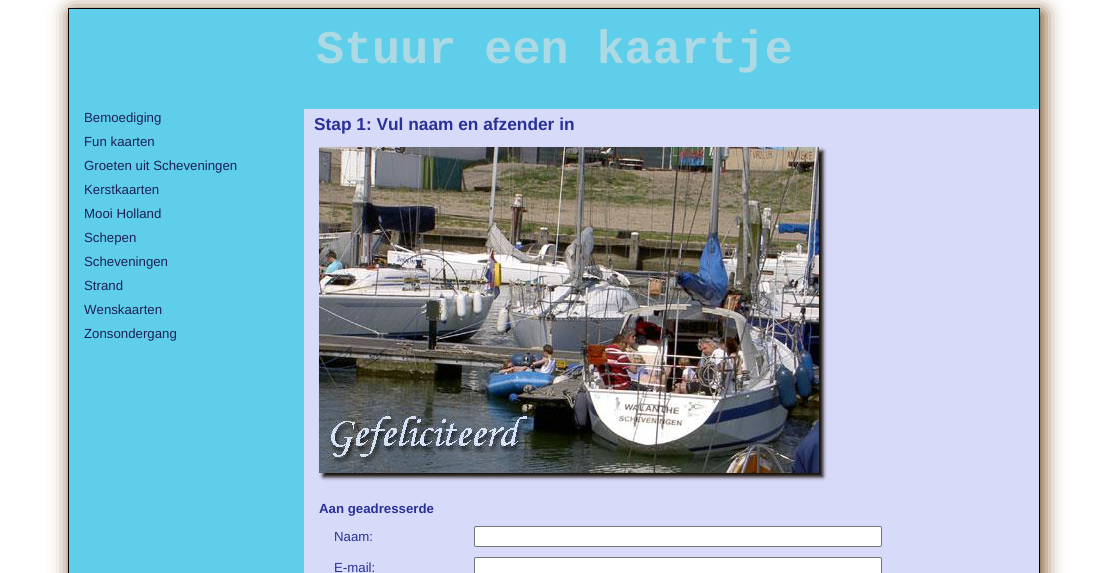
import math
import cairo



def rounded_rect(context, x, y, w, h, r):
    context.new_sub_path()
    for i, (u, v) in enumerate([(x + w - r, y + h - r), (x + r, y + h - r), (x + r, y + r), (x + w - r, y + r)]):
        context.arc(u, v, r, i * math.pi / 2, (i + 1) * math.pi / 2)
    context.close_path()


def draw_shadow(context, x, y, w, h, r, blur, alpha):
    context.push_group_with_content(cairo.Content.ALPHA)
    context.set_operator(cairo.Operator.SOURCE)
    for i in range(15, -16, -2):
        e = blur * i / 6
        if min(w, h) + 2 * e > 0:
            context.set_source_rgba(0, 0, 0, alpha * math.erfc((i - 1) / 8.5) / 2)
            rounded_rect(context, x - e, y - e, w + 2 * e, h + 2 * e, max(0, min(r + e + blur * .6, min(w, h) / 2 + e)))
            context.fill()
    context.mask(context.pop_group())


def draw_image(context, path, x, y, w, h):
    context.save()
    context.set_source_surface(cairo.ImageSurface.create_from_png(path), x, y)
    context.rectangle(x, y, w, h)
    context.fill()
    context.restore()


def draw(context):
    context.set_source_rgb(1, 1, 1)
    context.paint()
    context.set_source_rgb(105 / 255, 57 / 255, 6 / 255)
    draw_shadow(context, 71, 12, 972, 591, 0, 10, 1)
    context.set_source_rgb(94 / 255, 206 / 255, 234 / 255)
    context.rectangle(68.5, 8.5, 971, 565)
    context.fill_preserve()
    context.set_source_rgb(0, 0, 0)
    context.set_line_width(1)
    context.stroke()
    context.set_source_rgb(216 / 255, 218 / 255, 249 / 255)
    context.rectangle(304, 109, 735, 464)
    context.fill()
    context.set_source_rgb(19 / 255, 10 / 255, 1 / 255)
    draw_shadow(context, 323, 151, 500, 326, 0, 2, 1)
    draw_image(context, "images/1.png", 319, 147, 500, 326)
    context.set_source_rgb(1, 1, 1)
    rounded_rect(context, 474.5, 526.5, 407, 20, 1.5)
    context.fill_preserve()
    context.set_source_rgb(118 / 255, 118 / 255, 118 / 255)
    context.stroke()
    context.set_source_rgb(1, 1, 1)
    rounded_rect(context, 474.5, 557.5, 407, 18, 1.5)
    context.fill_preserve()
    context.set_source_rgb(118 / 255, 118 / 255, 118 / 255)
    context.stroke()
    context.select_font_face("Liberation Mono", cairo.FontSlant.NORMAL, cairo.FontWeight.BOLD)
    context.set_font_size(46.75)
    context.set_source_rgb(172 / 255, 217 / 255, 228 / 255)
    context.move_to(316, 63)
    context.show_text("Stuur een kaartje")
    context.select_font_face("Liberation Sans")
    context.set_font_size(13.25)
    context.set_source_rgb(28 / 255, 32 / 255, 86 / 255)
    context.move_to(84, 122)
    context.show_text("Bemoediging")
    context.move_to(84, 146)
    context.show_text("Fun kaarten")
    context.move_to(84, 170)
    context.show_text("Groeten uit Scheveningen")
    context.move_to(84, 194)
    context.show_text("Kerstkaarten")
    context.move_to(84, 218)
    context.show_text("Mooi Holland")
    context.move_to(84, 242)
    context.show_text("Schepen")
    context.move_to(84, 266)
    context.show_text("Scheveningen")
    context.move_to(84, 290)
    context.show_text("Strand")
    context.move_to(84, 314)
    context.show_text("Wenskaarten")
    context.move_to(84, 338)
    context.show_text("Zonsondergang")
    context.select_font_face("Liberation Sans", cairo.FontSlant.NORMAL, cairo.FontWeight.BOLD)
    context.set_font_size(17.3)
    context.set_source_rgb(41 / 255, 49 / 255, 150 / 255)
    context.move_to(314, 130)
    context.show_text("Stap 1: Vul naam en afzender in")
    context.set_font_size(13.25)
    context.move_to(319, 513)
    context.show_text("Aan geadresserde")
    context.select_font_face("Liberation Sans")
    context.move_to(334, 541)
    context.show_text("Naam:")
    context.move_to(334, 572)
    context.show_text("E-mail:")


surface = cairo.ImageSurface(cairo.Format.RGB24, 1107, 573)
context = cairo.Context(surface)
options = cairo.FontOptions()
options.set_hint_metrics(cairo.HintMetrics.OFF)
options.set_hint_style(cairo.HintStyle.NONE)
context.set_font_options(options)
context.set_miter_limit(4)
draw(context)
surface.write_to_png("out.png")
